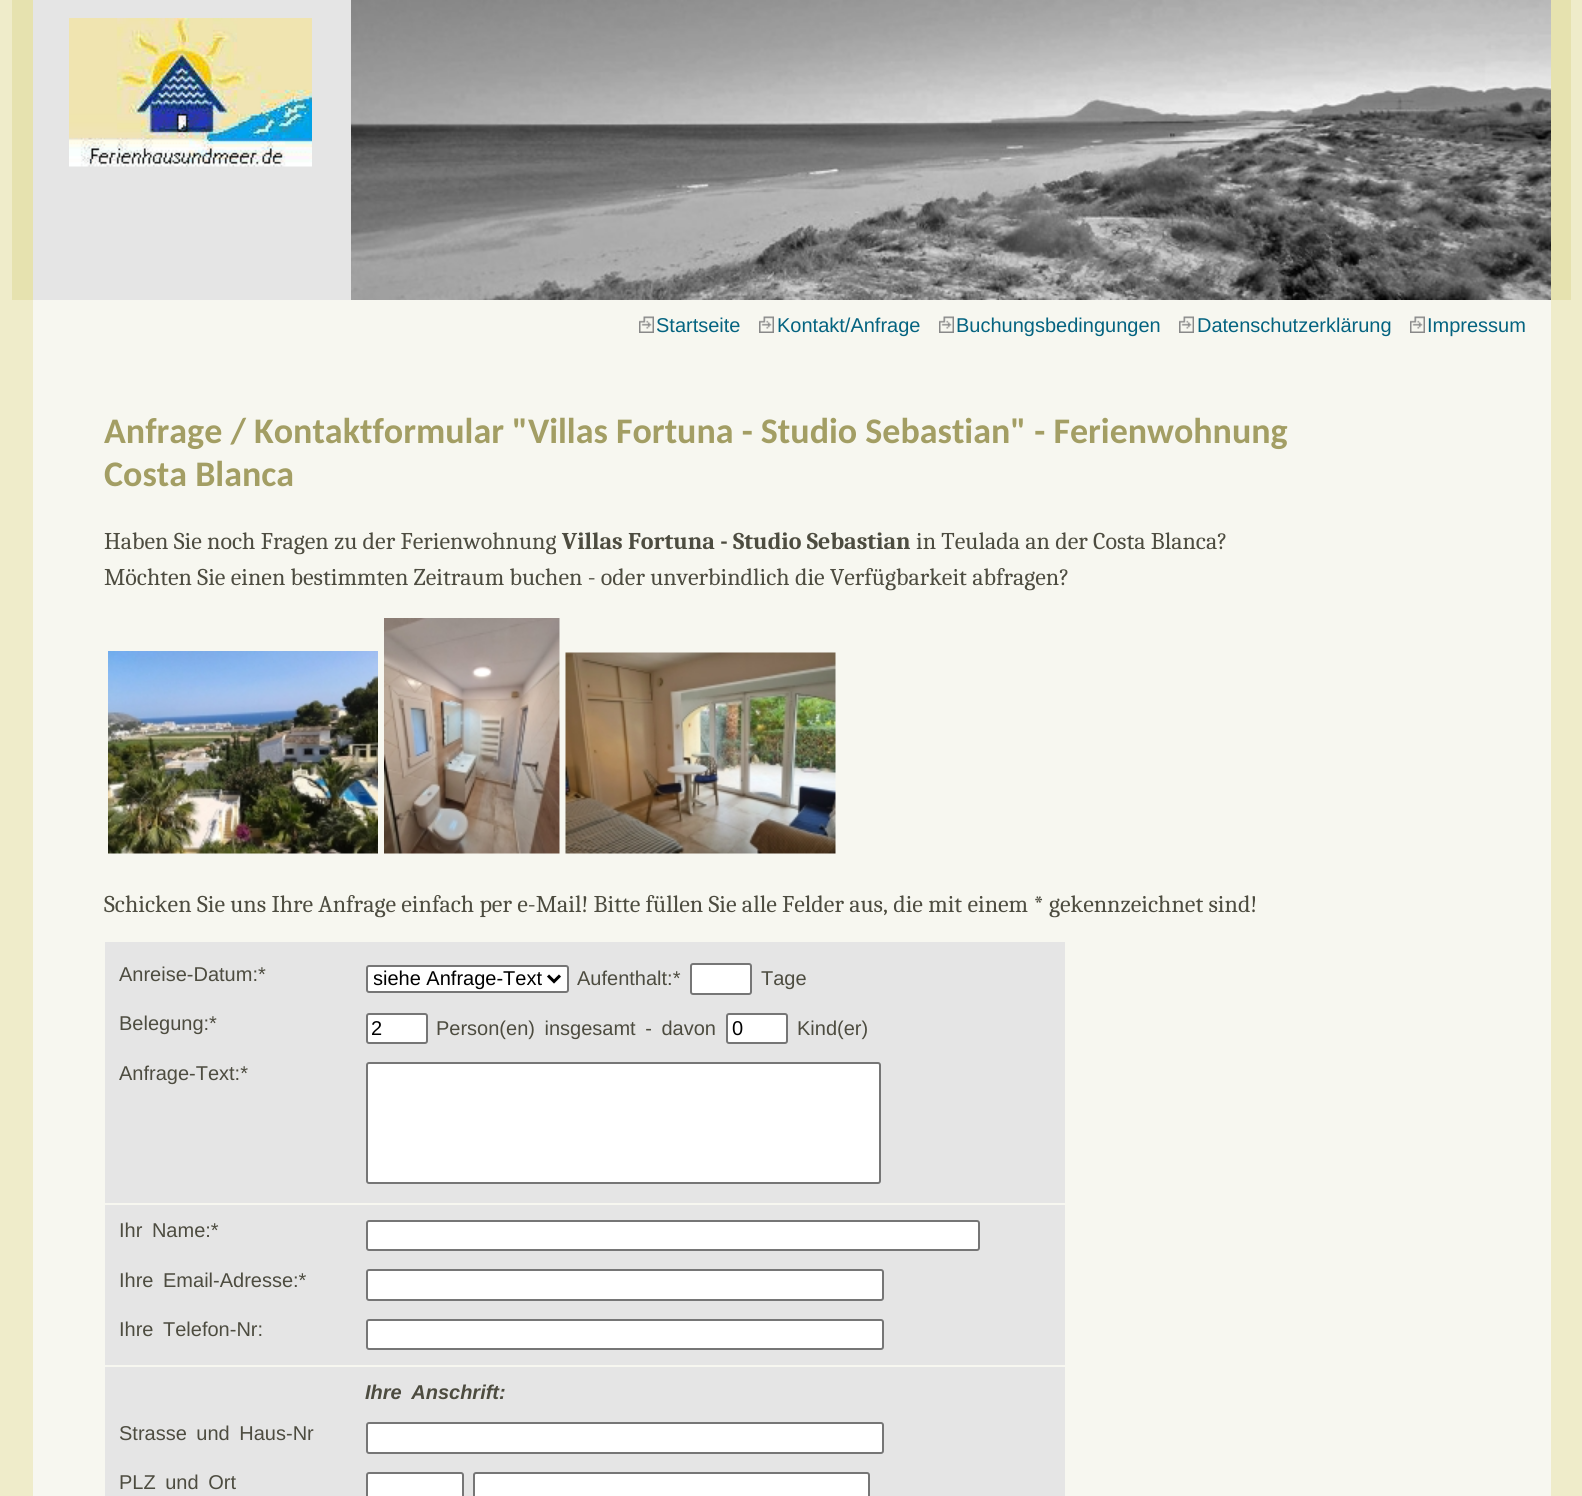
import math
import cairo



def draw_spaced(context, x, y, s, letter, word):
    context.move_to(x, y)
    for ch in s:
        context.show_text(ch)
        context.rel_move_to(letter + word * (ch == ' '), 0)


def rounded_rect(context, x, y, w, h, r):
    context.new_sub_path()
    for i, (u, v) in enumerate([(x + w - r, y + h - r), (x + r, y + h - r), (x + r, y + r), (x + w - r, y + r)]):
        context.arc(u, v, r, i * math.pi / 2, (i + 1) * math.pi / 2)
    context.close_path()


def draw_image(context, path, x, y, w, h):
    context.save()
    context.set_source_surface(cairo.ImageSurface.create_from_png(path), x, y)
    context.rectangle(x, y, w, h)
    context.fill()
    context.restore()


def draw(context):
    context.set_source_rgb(239 / 255, 236 / 255, 202 / 255)
    context.paint()
    context.set_source_rgb(230 / 255, 226 / 255, 175 / 255)
    context.rectangle(12, 0, 1559, 300)
    context.fill()
    context.set_source_rgb(229 / 255, 229 / 255, 229 / 255)
    context.rectangle(33, 0, 318, 300)
    context.fill()
    draw_image(context, "images/1.png", 69, 18, 243, 149)
    draw_image(context, "images/2.png", 351, 0, 1200, 300)
    context.set_source_rgb(247 / 255, 247 / 255, 240 / 255)
    context.rectangle(33, 300, 1518, 1196)
    context.fill()
    draw_image(context, "images/3.png", 639, 316, 15, 17)
    draw_image(context, "images/4.png", 759, 316, 15, 17)
    draw_image(context, "images/3.png", 939, 316, 15, 17)
    draw_image(context, "images/5.png", 1179, 316, 15, 17)
    draw_image(context, "images/3.png", 1410, 316, 15, 17)
    draw_image(context, "images/6.png", 108, 651, 270, 203)
    draw_image(context, "images/7.png", 384, 618, 176, 236)
    draw_image(context, "images/8.png", 565, 652, 271, 202)
    context.set_source_rgb(229 / 255, 229 / 255, 229 / 255)
    context.rectangle(105, 942, 960, 554)
    context.fill()
    context.set_source_rgb(1, 1, 1)
    rounded_rect(context, 367, 966, 201, 26, 2)
    context.fill_preserve()
    context.set_source_rgb(118 / 255, 118 / 255, 118 / 255)
    context.stroke()
    context.new_path()
    context.move_to(548, 975.5)
    context.line_to(554, 981.5)
    context.line_to(560, 975.5)
    context.set_source_rgb(0, 0, 0)
    context.set_line_width(3)
    context.stroke()
    context.set_source_rgb(1, 1, 1)
    rounded_rect(context, 691, 964, 60, 30, 2)
    context.fill_preserve()
    context.set_source_rgb(118 / 255, 118 / 255, 118 / 255)
    context.set_line_width(2)
    context.stroke()
    context.set_source_rgb(1, 1, 1)
    rounded_rect(context, 367, 1014, 60, 29, 2)
    context.fill_preserve()
    context.set_source_rgb(118 / 255, 118 / 255, 118 / 255)
    context.stroke()
    context.set_source_rgb(1, 1, 1)
    rounded_rect(context, 727, 1014, 60, 29, 2)
    context.fill_preserve()
    context.set_source_rgb(118 / 255, 118 / 255, 118 / 255)
    context.stroke()
    context.set_source_rgb(1, 1, 1)
    rounded_rect(context, 367, 1063, 513, 120, 2)
    context.fill_preserve()
    context.set_source_rgb(118 / 255, 118 / 255, 118 / 255)
    context.stroke()
    context.set_source_rgb(247 / 255, 247 / 255, 240 / 255)
    context.rectangle(105, 1203, 960, 2)
    context.fill()
    context.set_source_rgb(1, 1, 1)
    rounded_rect(context, 367, 1221, 612, 29, 2)
    context.fill_preserve()
    context.set_source_rgb(118 / 255, 118 / 255, 118 / 255)
    context.stroke()
    context.set_source_rgb(1, 1, 1)
    rounded_rect(context, 367, 1270, 516, 30, 2)
    context.fill_preserve()
    context.set_source_rgb(118 / 255, 118 / 255, 118 / 255)
    context.stroke()
    context.set_source_rgb(1, 1, 1)
    rounded_rect(context, 367, 1320, 516, 29, 2)
    context.fill_preserve()
    context.set_source_rgb(118 / 255, 118 / 255, 118 / 255)
    context.stroke()
    context.set_source_rgb(247 / 255, 247 / 255, 240 / 255)
    context.rectangle(105, 1365, 960, 2)
    context.fill()
    context.set_source_rgb(1, 1, 1)
    rounded_rect(context, 367, 1423, 516, 30, 2)
    context.fill_preserve()
    context.set_source_rgb(118 / 255, 118 / 255, 118 / 255)
    context.stroke()
    context.set_source_rgb(1, 1, 1)
    rounded_rect(context, 367, 1473, 96, 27, 2)
    context.fill_preserve()
    context.set_source_rgb(118 / 255, 118 / 255, 118 / 255)
    context.stroke()
    context.set_source_rgb(1, 1, 1)
    rounded_rect(context, 474, 1473, 395, 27, 2)
    context.fill_preserve()
    context.set_source_rgb(118 / 255, 118 / 255, 118 / 255)
    context.stroke()
    context.select_font_face("Liberation Sans")
    context.set_font_size(20)
    context.set_source_rgb(4 / 255, 99 / 255, 128 / 255)
    context.move_to(656, 332)
    context.show_text("Startseite")
    context.move_to(777, 332)
    context.show_text("Kontakt/Anfrage")
    context.move_to(956, 332)
    context.show_text("Buchungsbedingungen")
    context.move_to(1197, 332)
    context.show_text("Datenschutzerklärung")
    context.move_to(1427, 332)
    context.show_text("Impressum")
    context.select_font_face("Carlito", cairo.FontSlant.NORMAL, cairo.FontWeight.BOLD)
    context.set_font_size(36)
    context.set_source_rgb(163 / 255, 158 / 255, 100 / 255)
    context.move_to(104, 443)
    context.show_text("Anfrage / Kontaktformular \"Villas Fortuna - Studio Sebastian\" - Ferienwohnung")
    context.move_to(104, 486)
    context.show_text("Costa Blanca")
    context.select_font_face("Caladea")
    context.set_font_size(24)
    context.set_source_rgb(77 / 255, 76 / 255, 64 / 255)
    context.move_to(104, 549)
    context.show_text("Haben Sie noch Fragen zu der Ferienwohnung")
    context.select_font_face("Caladea", cairo.FontSlant.NORMAL, cairo.FontWeight.BOLD)
    context.move_to(562, 549)
    context.show_text("Villas Fortuna - Studio Sebastian")
    context.select_font_face("Caladea")
    context.move_to(916, 549)
    context.show_text("in Teulada an der Costa Blanca?")
    context.move_to(104, 585)
    context.show_text("Möchten Sie einen bestimmten Zeitraum buchen - oder unverbindlich die Verfügbarkeit abfragen?")
    context.move_to(104, 912)
    context.show_text("Schicken Sie uns Ihre Anfrage einfach per e-Mail! Bitte füllen Sie alle Felder aus, die mit einem * gekennzeichnet sind!")
    context.select_font_face("Liberation Sans")
    context.set_font_size(20)
    context.move_to(119, 981)
    context.show_text("Anreise-Datum:*")
    context.save()
    context.rectangle(374, 966, 169, 26)
    context.clip()
    context.set_source_rgb(0, 0, 0)
    context.move_to(373, 985)
    context.show_text("siehe Anfrage-Text")
    context.restore()
    context.move_to(577, 985)
    context.show_text("Aufenthalt:*")
    context.move_to(761, 985)
    context.show_text("Tage")
    context.move_to(119, 1030)
    context.show_text("Belegung:*")
    context.set_source_rgb(0, 0, 0)
    context.move_to(371, 1035)
    context.show_text("2")
    context.set_source_rgb(77 / 255, 76 / 255, 64 / 255)
    draw_spaced(context, 436, 1035, "Person(en) insgesamt - davon", 0, 4)
    context.set_source_rgb(0, 0, 0)
    context.move_to(732, 1035)
    context.show_text("0")
    context.set_source_rgb(77 / 255, 76 / 255, 64 / 255)
    context.move_to(797, 1035)
    context.show_text("Kind(er)")
    context.move_to(119, 1080)
    context.show_text("Anfrage-Text:*")
    draw_spaced(context, 119, 1237, "Ihr Name:*", 0, 4)
    draw_spaced(context, 119, 1287, "Ihre Email-Adresse:*", 0, 4)
    draw_spaced(context, 119, 1336, "Ihre Telefon-Nr:", 0, 4)
    context.select_font_face("Liberation Sans", cairo.FontSlant.ITALIC, cairo.FontWeight.BOLD)
    draw_spaced(context, 365, 1399, "Ihre Anschrift:", 0, 4)
    context.select_font_face("Liberation Sans")
    draw_spaced(context, 119, 1440, "Strasse und Haus-Nr", 0, 4)
    draw_spaced(context, 119, 1489, "PLZ und Ort", 0, 4)


surface = cairo.ImageSurface(cairo.Format.RGB24, 1582, 1496)
context = cairo.Context(surface)
options = cairo.FontOptions()
options.set_hint_metrics(cairo.HintMetrics.OFF)
options.set_hint_style(cairo.HintStyle.NONE)
context.set_font_options(options)
context.set_miter_limit(4)
draw(context)
surface.write_to_png("out.png")
